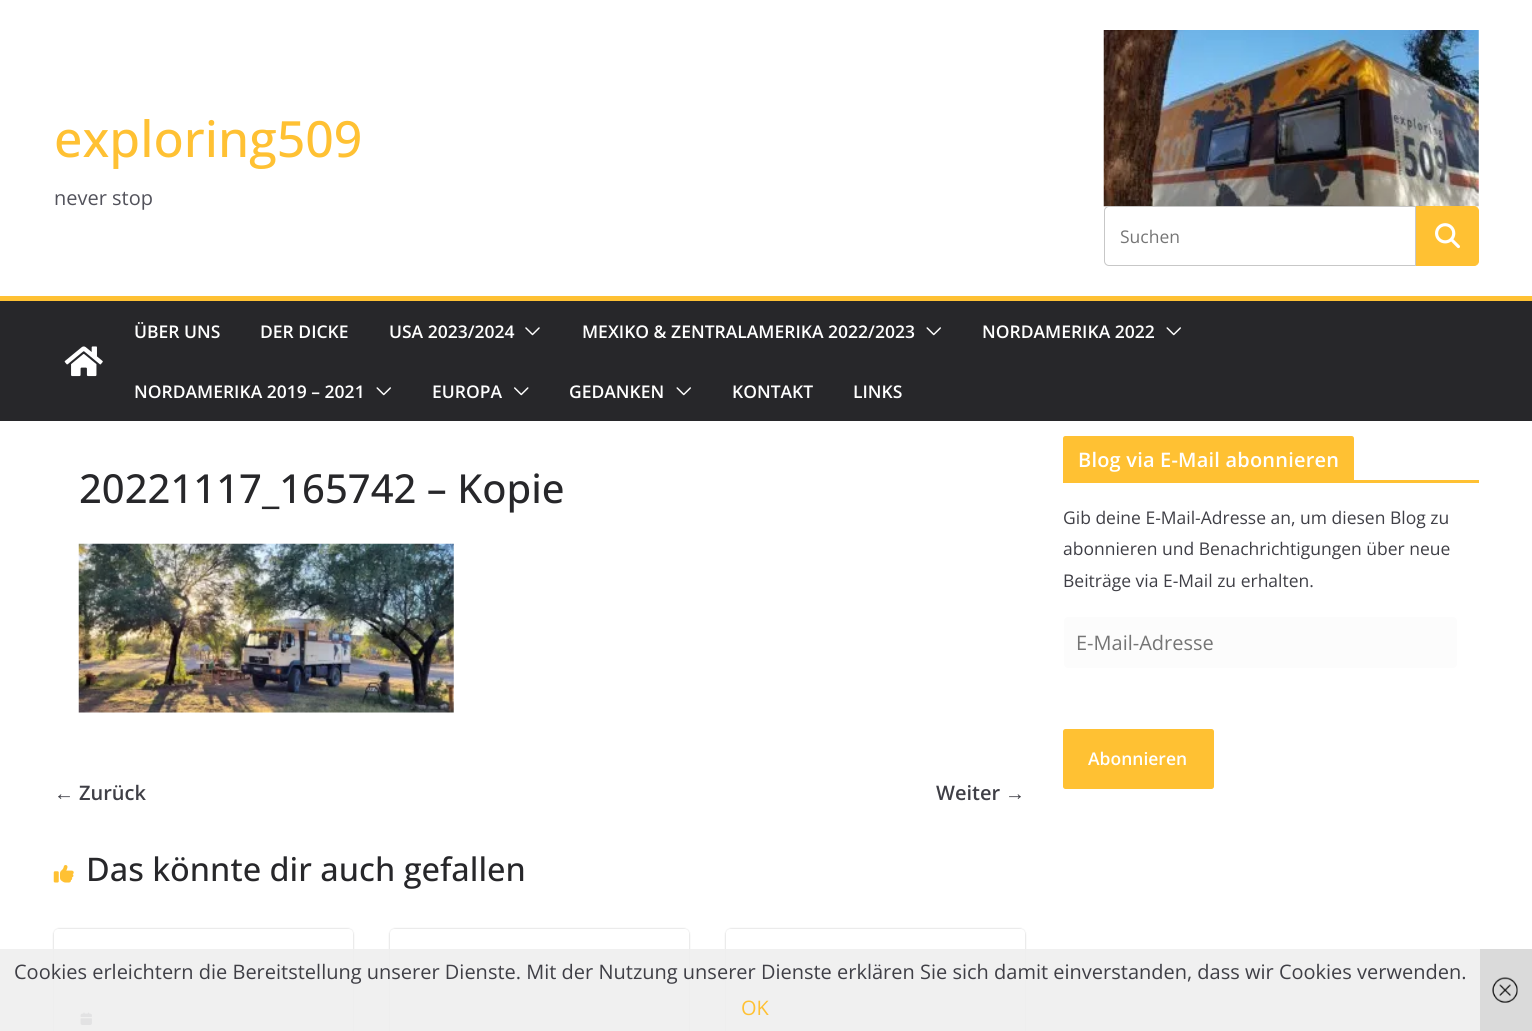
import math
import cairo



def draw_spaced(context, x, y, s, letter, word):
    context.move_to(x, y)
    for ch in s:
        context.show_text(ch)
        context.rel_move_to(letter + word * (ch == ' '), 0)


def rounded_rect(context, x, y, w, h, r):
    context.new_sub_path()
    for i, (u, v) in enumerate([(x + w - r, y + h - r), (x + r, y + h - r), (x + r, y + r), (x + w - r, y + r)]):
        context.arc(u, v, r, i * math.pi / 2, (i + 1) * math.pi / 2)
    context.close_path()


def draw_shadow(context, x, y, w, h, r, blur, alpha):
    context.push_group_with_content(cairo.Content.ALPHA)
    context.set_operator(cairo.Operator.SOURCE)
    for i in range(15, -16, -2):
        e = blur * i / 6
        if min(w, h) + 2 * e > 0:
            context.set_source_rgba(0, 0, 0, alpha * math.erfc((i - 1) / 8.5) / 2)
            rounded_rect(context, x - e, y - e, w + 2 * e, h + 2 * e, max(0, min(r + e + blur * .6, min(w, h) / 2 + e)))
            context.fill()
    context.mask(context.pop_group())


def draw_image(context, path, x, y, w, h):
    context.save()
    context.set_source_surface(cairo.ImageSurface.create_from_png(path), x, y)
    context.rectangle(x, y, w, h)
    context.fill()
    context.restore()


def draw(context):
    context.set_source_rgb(1, 1, 1)
    context.paint()
    draw_image(context, "images/1.png", 1103, 30, 376, 177)
    context.set_source_rgb(1, 1, 1)
    context.new_path()
    context.move_to(1109, 206.5)
    context.line_to(1415.5, 206.5)
    context.line_to(1415.5, 265.5)
    context.line_to(1109, 265.5)
    context.curve_to(1106.5, 265.5, 1104.5, 263.5, 1104.5, 261)
    context.line_to(1104.5, 211)
    context.curve_to(1104.5, 208.5, 1106.5, 206.5, 1109, 206.5)
    context.close_path()
    context.fill_preserve()
    context.set_source_rgb(199 / 255, 199 / 255, 199 / 255)
    context.set_line_width(1)
    context.stroke()
    context.set_source_rgb(1, 193 / 255, 51 / 255)
    context.new_path()
    context.move_to(1416.5, 206.5)
    context.line_to(1474, 206.5)
    context.curve_to(1476.5, 206.5, 1478.5, 208.5, 1478.5, 211)
    context.line_to(1478.5, 261)
    context.curve_to(1478.5, 263.5, 1476.5, 265.5, 1474, 265.5)
    context.line_to(1416.5, 265.5)
    context.close_path()
    context.fill_preserve()
    context.stroke()
    draw_image(context, "images/2.png", 1435, 223, 25, 26)
    context.set_source_rgb(39 / 255, 39 / 255, 42 / 255)
    context.rectangle(0, 301, 1532, 120)
    context.fill()
    context.set_source_rgb(1, 193 / 255, 51 / 255)
    context.rectangle(0, 296, 1532, 5)
    context.fill()
    draw_image(context, "images/3.png", 64, 346, 39, 31)
    draw_image(context, "images/4.png", 525, 327, 15, 9)
    draw_image(context, "images/5.png", 926, 327, 15, 9)
    draw_image(context, "images/5.png", 1166, 327, 15, 9)
    draw_image(context, "images/5.png", 376, 387, 15, 9)
    draw_image(context, "images/6.png", 514, 387, 15, 9)
    draw_image(context, "images/5.png", 676, 387, 15, 9)
    draw_image(context, "images/7.png", 78, 543, 376, 170)
    draw_image(context, "images/8.png", 53, 865, 21, 18)
    context.save()
    context.set_fill_rule(cairo.FillRule.EVEN_ODD)
    context.new_path()
    context.move_to(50, 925)
    context.line_to(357, 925)
    context.line_to(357, 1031)
    context.line_to(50, 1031)
    context.close_path()
    context.move_to(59, 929)
    context.line_to(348, 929)
    context.curve_to(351, 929, 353, 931, 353, 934)
    context.line_to(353, 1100)
    context.curve_to(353, 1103, 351, 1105, 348, 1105)
    context.line_to(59, 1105)
    context.curve_to(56, 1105, 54, 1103, 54, 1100)
    context.line_to(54, 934)
    context.curve_to(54, 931, 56, 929, 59, 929)
    context.close_path()
    context.clip()
    context.set_source_rgb(0, 0, 0)
    draw_shadow(context, 54, 929, 299, 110, 5, 1, 0.24)
    context.restore()
    draw_image(context, "images/9.png", 80, 1012, 12, 13)
    context.save()
    context.set_fill_rule(cairo.FillRule.EVEN_ODD)
    context.new_path()
    context.move_to(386, 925)
    context.line_to(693, 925)
    context.line_to(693, 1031)
    context.line_to(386, 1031)
    context.close_path()
    context.move_to(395, 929)
    context.line_to(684, 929)
    context.curve_to(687, 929, 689, 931, 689, 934)
    context.line_to(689, 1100)
    context.curve_to(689, 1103, 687, 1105, 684, 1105)
    context.line_to(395, 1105)
    context.curve_to(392, 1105, 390, 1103, 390, 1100)
    context.line_to(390, 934)
    context.curve_to(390, 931, 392, 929, 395, 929)
    context.close_path()
    context.clip()
    context.set_source_rgb(0, 0, 0)
    draw_shadow(context, 390, 929, 299, 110, 5, 1, 0.24)
    context.restore()
    context.save()
    context.set_fill_rule(cairo.FillRule.EVEN_ODD)
    context.new_path()
    context.move_to(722, 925)
    context.line_to(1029, 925)
    context.line_to(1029, 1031)
    context.line_to(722, 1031)
    context.close_path()
    context.move_to(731, 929)
    context.line_to(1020, 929)
    context.curve_to(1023, 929, 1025, 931, 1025, 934)
    context.line_to(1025, 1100)
    context.curve_to(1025, 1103, 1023, 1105, 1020, 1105)
    context.line_to(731, 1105)
    context.curve_to(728, 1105, 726, 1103, 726, 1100)
    context.line_to(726, 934)
    context.curve_to(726, 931, 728, 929, 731, 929)
    context.close_path()
    context.clip()
    context.set_source_rgb(0, 0, 0)
    draw_shadow(context, 726, 929, 299, 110, 5, 1, 0.24)
    context.restore()
    context.rectangle(1063, 480, 416, 3)
    context.fill()
    context.new_path()
    context.move_to(1065.5, 436)
    context.line_to(1351.5, 436)
    context.curve_to(1353, 436, 1354, 437, 1354, 438.5)
    context.line_to(1354, 480)
    context.line_to(1063, 480)
    context.line_to(1063, 438.5)
    context.curve_to(1063, 437, 1064, 436, 1065.5, 436)
    context.close_path()
    context.fill()
    context.set_source_rgb(252 / 255, 252 / 255, 252 / 255)
    rounded_rect(context, 1063.5, 616.5, 394, 52, 4.5)
    context.fill_preserve()
    context.set_source_rgb(1, 1, 1)
    context.stroke()
    context.set_source_rgb(1, 193 / 255, 51 / 255)
    rounded_rect(context, 1063, 729, 151, 60, 2.5)
    context.fill()
    context.set_source_rgba(238 / 255, 238 / 255, 238 / 255, 0.9)
    context.rectangle(0, 949, 1480, 82)
    context.fill()
    context.set_source_rgb(218 / 255, 218 / 255, 218 / 255)
    context.rectangle(1480, 949, 52, 82)
    context.fill()
    draw_image(context, "images/10.png", 1492, 977, 26, 26)
    context.select_font_face("Open Sans Medium")
    context.set_font_size(50)
    context.set_source_rgb(1, 193 / 255, 51 / 255)
    context.move_to(54, 157)
    context.show_text("exploring509")
    context.select_font_face("Open Sans")
    context.set_font_size(20)
    context.set_source_rgb(82 / 255, 82 / 255, 91 / 255)
    context.move_to(54, 205)
    context.show_text("never stop")
    context.set_font_size(17.5)
    context.set_source_rgb(117 / 255, 117 / 255, 117 / 255)
    context.move_to(1120, 243)
    context.show_text("Suchen")
    context.select_font_face("Open Sans SemiBold")
    context.set_source_rgb(1, 1, 1)
    context.move_to(134, 338)
    context.show_text("ÜBER UNS")
    context.move_to(260, 338)
    context.show_text("DER DICKE")
    context.move_to(389, 338)
    context.show_text("USA 2023/2024")
    context.move_to(582, 338)
    context.show_text("MEXIKO & ZENTRALAMERIKA 2022/2023")
    context.move_to(982, 338)
    context.show_text("NORDAMERIKA 2022")
    context.move_to(134, 398)
    context.show_text("NORDAMERIKA 2019 – 2021")
    context.move_to(432, 398)
    context.show_text("EUROPA")
    context.move_to(569, 398)
    context.show_text("GEDANKEN")
    context.move_to(732, 398)
    context.show_text("KONTAKT")
    context.move_to(853, 398)
    context.show_text("LINKS")
    context.select_font_face("Open Sans Medium")
    context.set_font_size(40)
    context.set_source_rgb(39 / 255, 39 / 255, 42 / 255)
    context.move_to(79, 503)
    context.show_text("20221117_165742 – Kopie")
    context.select_font_face("Liberation Serif", cairo.FontSlant.NORMAL, cairo.FontWeight.BOLD)
    context.set_font_size(20)
    context.set_source_rgb(63 / 255, 63 / 255, 70 / 255)
    context.move_to(54, 800)
    context.show_text("←")
    context.select_font_face("Open Sans SemiBold")
    context.move_to(79, 800)
    context.show_text("Zurück")
    context.move_to(936, 800)
    context.show_text("Weiter")
    context.select_font_face("Liberation Serif", cairo.FontSlant.NORMAL, cairo.FontWeight.BOLD)
    context.move_to(1005, 800)
    context.show_text("→")
    context.select_font_face("Open Sans Medium")
    context.set_font_size(32.5)
    context.set_source_rgb(39 / 255, 39 / 255, 42 / 255)
    context.move_to(86, 881)
    context.show_text("Das könnte dir auch gefallen")
    context.select_font_face("Open Sans SemiBold")
    context.set_font_size(20)
    context.set_source_rgb(1, 1, 1)
    draw_spaced(context, 1078, 467, "Blog via E-Mail abonnieren", 0.2, 0)
    context.select_font_face("Open Sans")
    context.set_font_size(17.5)
    context.set_source_rgb(63 / 255, 63 / 255, 70 / 255)
    context.move_to(1063, 524)
    context.show_text("Gib deine E-Mail-Adresse an, um diesen Blog zu")
    context.move_to(1063, 555)
    context.show_text("abonnieren und Benachrichtigungen über neue")
    context.move_to(1063, 587)
    context.show_text("Beiträge via E-Mail zu erhalten.")
    context.set_font_size(20)
    context.set_source_rgb(117 / 255, 117 / 255, 117 / 255)
    context.move_to(1076, 650)
    context.show_text("E-Mail-Adresse")
    context.select_font_face("Open Sans SemiBold")
    context.set_font_size(17.5)
    context.set_source_rgb(1, 1, 1)
    context.move_to(1088, 765)
    context.show_text("Abonnieren")
    context.select_font_face("Open Sans")
    context.set_font_size(20)
    context.set_source_rgb(63 / 255, 63 / 255, 70 / 255)
    context.move_to(14, 979)
    context.show_text("Cookies erleichtern die Bereitstellung unserer Dienste. Mit der Nutzung unserer Dienste erklären Sie sich damit einverstanden, dass wir Cookies verwenden.")
    context.set_source_rgb(1, 193 / 255, 51 / 255)
    context.move_to(741, 1015)
    context.show_text("OK")


surface = cairo.ImageSurface(cairo.Format.RGB24, 1532, 1031)
context = cairo.Context(surface)
options = cairo.FontOptions()
options.set_hint_metrics(cairo.HintMetrics.OFF)
options.set_hint_style(cairo.HintStyle.NONE)
context.set_font_options(options)
context.set_miter_limit(4)
draw(context)
surface.write_to_png("out.png")
